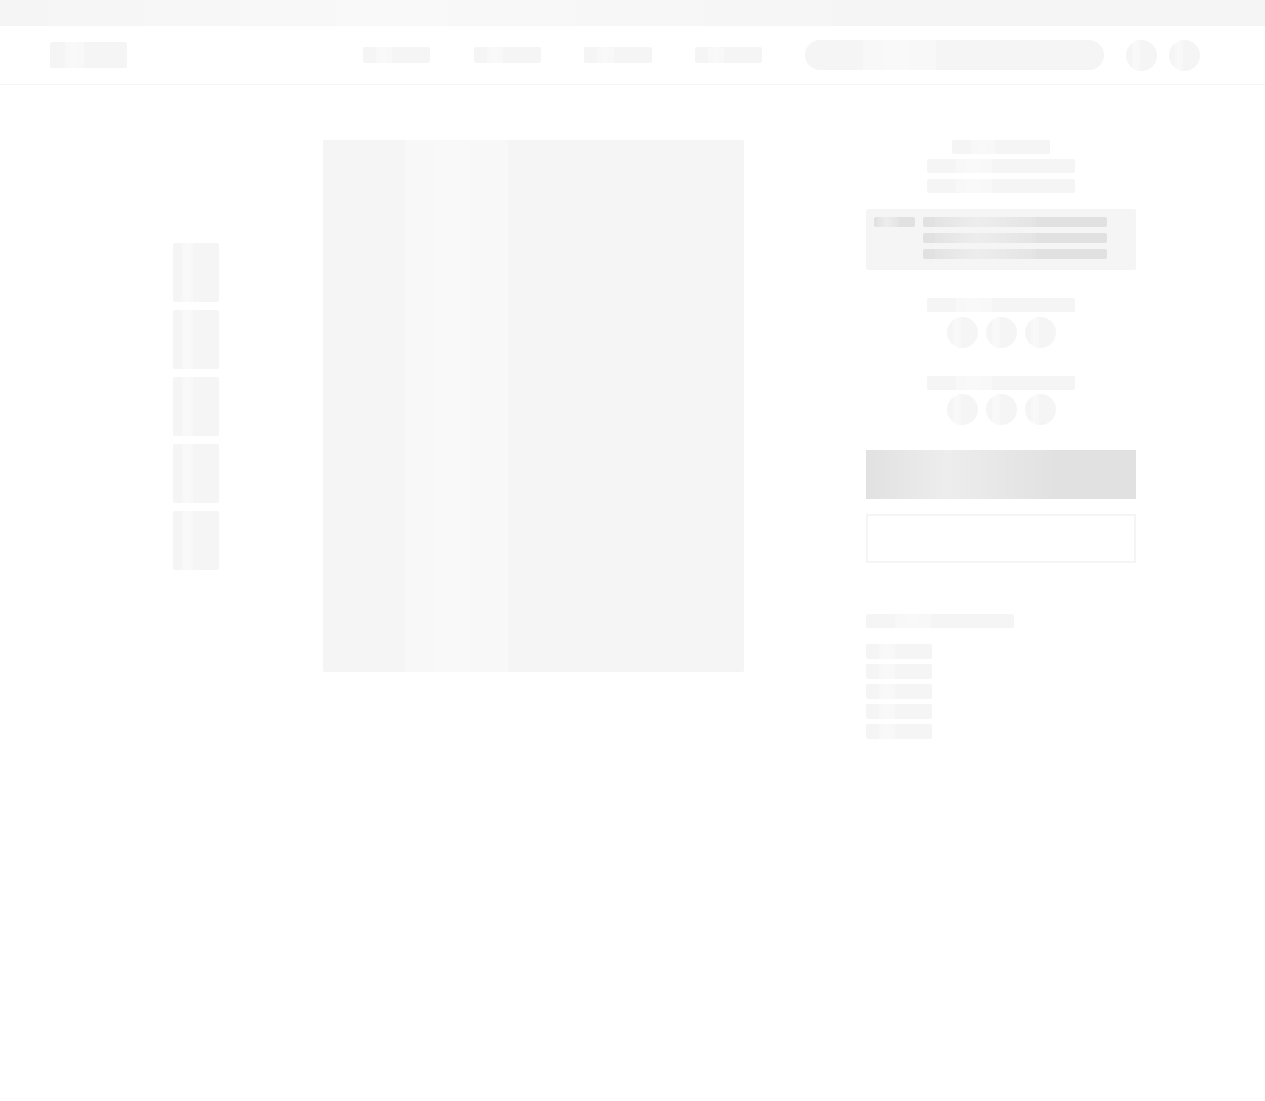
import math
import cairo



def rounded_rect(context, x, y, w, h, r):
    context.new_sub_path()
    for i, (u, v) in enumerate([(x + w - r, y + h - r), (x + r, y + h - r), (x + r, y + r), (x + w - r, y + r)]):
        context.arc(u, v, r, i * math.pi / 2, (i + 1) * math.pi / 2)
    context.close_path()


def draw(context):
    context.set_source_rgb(1, 1, 1)
    context.paint()
    context.set_source_rgb(245 / 255, 245 / 255, 245 / 255)
    context.rectangle(0, 84, 1265, 1)
    context.fill()
    gradient = cairo.LinearGradient(0, 13, 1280, 13)
    gradient.add_color_stop_rgba(0, 245 / 255, 245 / 255, 245 / 255, 1)
    gradient.add_color_stop_rgba(0.3, 249 / 255, 249 / 255, 249 / 255, 1)
    gradient.add_color_stop_rgba(0.7, 245 / 255, 245 / 255, 245 / 255, 1)
    context.set_source(gradient)
    context.rectangle(0, 0, 1265, 26)
    context.fill()
    context.set_source_rgb(245 / 255, 245 / 255, 245 / 255)
    rounded_rect(context, 50, 42, 77, 26, 2)
    context.fill()
    gradient = cairo.LinearGradient(50, 55, 127, 55)
    gradient.add_color_stop_rgba(0, 1, 1, 1, 0)
    gradient.add_color_stop_rgba(0.3, 1, 1, 1, 0.4)
    gradient.add_color_stop_rgba(0.7, 1, 1, 1, 0)
    context.set_source(gradient)
    context.rectangle(65, 42, 19, 26)
    context.fill()
    context.set_source_rgb(245 / 255, 245 / 255, 245 / 255)
    rounded_rect(context, 363, 47, 67, 16, 2)
    context.fill()
    gradient = cairo.LinearGradient(363, 55, 430, 55)
    gradient.add_color_stop_rgba(0, 1, 1, 1, 0)
    gradient.add_color_stop_rgba(0.3, 1, 1, 1, 0.4)
    gradient.add_color_stop_rgba(0.7, 1, 1, 1, 0)
    context.set_source(gradient)
    context.rectangle(376, 47, 16, 16)
    context.fill()
    context.set_source_rgb(245 / 255, 245 / 255, 245 / 255)
    rounded_rect(context, 474, 47, 67, 16, 2)
    context.fill()
    gradient = cairo.LinearGradient(474, 55, 541, 55)
    gradient.add_color_stop_rgba(0, 1, 1, 1, 0)
    gradient.add_color_stop_rgba(0.3, 1, 1, 1, 0.4)
    gradient.add_color_stop_rgba(0.7, 1, 1, 1, 0)
    context.set_source(gradient)
    context.rectangle(487, 47, 16, 16)
    context.fill()
    context.set_source_rgb(245 / 255, 245 / 255, 245 / 255)
    rounded_rect(context, 584, 47, 68, 16, 2)
    context.fill()
    gradient = cairo.LinearGradient(584, 55, 652, 55)
    gradient.add_color_stop_rgba(0, 1, 1, 1, 0)
    gradient.add_color_stop_rgba(0.3, 1, 1, 1, 0.4)
    gradient.add_color_stop_rgba(0.7, 1, 1, 1, 0)
    context.set_source(gradient)
    context.rectangle(597, 47, 17, 16)
    context.fill()
    context.set_source_rgb(245 / 255, 245 / 255, 245 / 255)
    rounded_rect(context, 695, 47, 67, 16, 2)
    context.fill()
    gradient = cairo.LinearGradient(695, 55, 762, 55)
    gradient.add_color_stop_rgba(0, 1, 1, 1, 0)
    gradient.add_color_stop_rgba(0.3, 1, 1, 1, 0.4)
    gradient.add_color_stop_rgba(0.7, 1, 1, 1, 0)
    context.set_source(gradient)
    context.rectangle(708, 47, 16, 16)
    context.fill()
    context.set_source_rgb(245 / 255, 245 / 255, 245 / 255)
    rounded_rect(context, 805, 40, 299, 30, 15)
    context.fill()
    gradient = cairo.LinearGradient(805, 55, 1104, 55)
    gradient.add_color_stop_rgba(0, 1, 1, 1, 0)
    gradient.add_color_stop_rgba(0.3, 1, 1, 1, 0.4)
    gradient.add_color_stop_rgba(0.7, 1, 1, 1, 0)
    context.set_source(gradient)
    context.rectangle(863, 40, 73, 30)
    context.fill()
    context.set_source_rgb(245 / 255, 245 / 255, 245 / 255)
    context.arc(1141.5, 55.5, 15.5, 0, 2 * math.pi)
    context.fill()
    gradient = cairo.LinearGradient(1126, 56, 1157, 56)
    gradient.add_color_stop_rgba(0, 1, 1, 1, 0)
    gradient.add_color_stop_rgba(0.3, 1, 1, 1, 0.4)
    gradient.add_color_stop_rgba(0.7, 1, 1, 1, 0)
    context.set_source(gradient)
    context.rectangle(1132, 41, 8, 29)
    context.fill()
    context.set_source_rgb(245 / 255, 245 / 255, 245 / 255)
    context.arc(1184.5, 55.5, 15.5, 0, 2 * math.pi)
    context.fill()
    gradient = cairo.LinearGradient(1169, 56, 1200, 56)
    gradient.add_color_stop_rgba(0, 1, 1, 1, 0)
    gradient.add_color_stop_rgba(0.3, 1, 1, 1, 0.4)
    gradient.add_color_stop_rgba(0.7, 1, 1, 1, 0)
    context.set_source(gradient)
    context.rectangle(1175, 41, 8, 29)
    context.fill()
    context.set_source_rgb(245 / 255, 245 / 255, 245 / 255)
    rounded_rect(context, 173, 243, 46, 59, 2)
    context.fill()
    gradient = cairo.LinearGradient(173, 273, 219, 273)
    gradient.add_color_stop_rgba(0, 1, 1, 1, 0)
    gradient.add_color_stop_rgba(0.3, 1, 1, 1, 0.4)
    gradient.add_color_stop_rgba(0.7, 1, 1, 1, 0)
    context.set_source(gradient)
    context.rectangle(182, 243, 11, 59)
    context.fill()
    context.set_source_rgb(245 / 255, 245 / 255, 245 / 255)
    rounded_rect(context, 173, 310, 46, 59, 2)
    context.fill()
    gradient = cairo.LinearGradient(173, 340, 219, 340)
    gradient.add_color_stop_rgba(0, 1, 1, 1, 0)
    gradient.add_color_stop_rgba(0.3, 1, 1, 1, 0.4)
    gradient.add_color_stop_rgba(0.7, 1, 1, 1, 0)
    context.set_source(gradient)
    context.rectangle(182, 310, 11, 59)
    context.fill()
    context.set_source_rgb(245 / 255, 245 / 255, 245 / 255)
    rounded_rect(context, 173, 377, 46, 59, 2)
    context.fill()
    gradient = cairo.LinearGradient(173, 407, 219, 407)
    gradient.add_color_stop_rgba(0, 1, 1, 1, 0)
    gradient.add_color_stop_rgba(0.3, 1, 1, 1, 0.4)
    gradient.add_color_stop_rgba(0.7, 1, 1, 1, 0)
    context.set_source(gradient)
    context.rectangle(182, 377, 11, 59)
    context.fill()
    context.set_source_rgb(245 / 255, 245 / 255, 245 / 255)
    rounded_rect(context, 173, 444, 46, 59, 2)
    context.fill()
    gradient = cairo.LinearGradient(173, 474, 219, 474)
    gradient.add_color_stop_rgba(0, 1, 1, 1, 0)
    gradient.add_color_stop_rgba(0.3, 1, 1, 1, 0.4)
    gradient.add_color_stop_rgba(0.7, 1, 1, 1, 0)
    context.set_source(gradient)
    context.rectangle(182, 444, 11, 59)
    context.fill()
    context.set_source_rgb(245 / 255, 245 / 255, 245 / 255)
    rounded_rect(context, 173, 511, 46, 59, 2)
    context.fill()
    gradient = cairo.LinearGradient(173, 541, 219, 541)
    gradient.add_color_stop_rgba(0, 1, 1, 1, 0)
    gradient.add_color_stop_rgba(0.3, 1, 1, 1, 0.4)
    gradient.add_color_stop_rgba(0.7, 1, 1, 1, 0)
    context.set_source(gradient)
    context.rectangle(182, 511, 11, 59)
    context.fill()
    context.set_source_rgb(245 / 255, 245 / 255, 245 / 255)
    rounded_rect(context, 323, 140, 421, 532, 2)
    context.fill()
    gradient = cairo.LinearGradient(323, 406, 744, 406)
    gradient.add_color_stop_rgba(0, 1, 1, 1, 0)
    gradient.add_color_stop_rgba(0.3, 1, 1, 1, 0.4)
    gradient.add_color_stop_rgba(0.7, 1, 1, 1, 0)
    context.set_source(gradient)
    context.rectangle(405, 140, 103, 532)
    context.fill()
    context.set_source_rgb(245 / 255, 245 / 255, 245 / 255)
    rounded_rect(context, 952, 140, 98, 14, 2)
    context.fill()
    gradient = cairo.LinearGradient(952, 147, 1050, 147)
    gradient.add_color_stop_rgba(0, 1, 1, 1, 0)
    gradient.add_color_stop_rgba(0.3, 1, 1, 1, 0.4)
    gradient.add_color_stop_rgba(0.7, 1, 1, 1, 0)
    context.set_source(gradient)
    context.rectangle(971, 140, 24, 14)
    context.fill()
    context.set_source_rgb(245 / 255, 245 / 255, 245 / 255)
    rounded_rect(context, 927, 159, 148, 14, 2)
    context.fill()
    gradient = cairo.LinearGradient(927, 166, 1075, 166)
    gradient.add_color_stop_rgba(0, 1, 1, 1, 0)
    gradient.add_color_stop_rgba(0.3, 1, 1, 1, 0.4)
    gradient.add_color_stop_rgba(0.7, 1, 1, 1, 0)
    context.set_source(gradient)
    context.rectangle(956, 159, 36, 14)
    context.fill()
    context.set_source_rgb(245 / 255, 245 / 255, 245 / 255)
    rounded_rect(context, 927, 179, 148, 14, 2)
    context.fill()
    gradient = cairo.LinearGradient(927, 186, 1075, 186)
    gradient.add_color_stop_rgba(0, 1, 1, 1, 0)
    gradient.add_color_stop_rgba(0.3, 1, 1, 1, 0.4)
    gradient.add_color_stop_rgba(0.7, 1, 1, 1, 0)
    context.set_source(gradient)
    context.rectangle(956, 179, 36, 14)
    context.fill()
    context.set_source_rgb(245 / 255, 245 / 255, 245 / 255)
    rounded_rect(context, 866, 209, 270, 61, 2)
    context.fill()
    context.set_source_rgb(225 / 255, 225 / 255, 225 / 255)
    rounded_rect(context, 874, 217, 41, 10, 2)
    context.fill()
    gradient = cairo.LinearGradient(874, 222, 915, 222)
    gradient.add_color_stop_rgba(0, 1, 1, 1, 0)
    gradient.add_color_stop_rgba(0.3, 1, 1, 1, 0.4)
    gradient.add_color_stop_rgba(0.7, 1, 1, 1, 0)
    context.set_source(gradient)
    context.rectangle(877, 217, 22, 10)
    context.fill()
    context.set_source_rgb(225 / 255, 225 / 255, 225 / 255)
    rounded_rect(context, 923, 217, 184, 10, 2)
    context.fill()
    gradient = cairo.LinearGradient(923, 222, 1107, 222)
    gradient.add_color_stop_rgba(0, 1, 1, 1, 0)
    gradient.add_color_stop_rgba(0.3, 1, 1, 1, 0.4)
    gradient.add_color_stop_rgba(0.7, 1, 1, 1, 0)
    context.set_source(gradient)
    context.rectangle(935, 217, 101, 10)
    context.fill()
    context.set_source_rgb(225 / 255, 225 / 255, 225 / 255)
    rounded_rect(context, 923, 233, 184, 10, 2)
    context.fill()
    gradient = cairo.LinearGradient(923, 238, 1107, 238)
    gradient.add_color_stop_rgba(0, 1, 1, 1, 0)
    gradient.add_color_stop_rgba(0.3, 1, 1, 1, 0.4)
    gradient.add_color_stop_rgba(0.7, 1, 1, 1, 0)
    context.set_source(gradient)
    context.rectangle(935, 233, 101, 10)
    context.fill()
    context.set_source_rgb(225 / 255, 225 / 255, 225 / 255)
    rounded_rect(context, 923, 249, 184, 10, 2)
    context.fill()
    gradient = cairo.LinearGradient(923, 254, 1107, 254)
    gradient.add_color_stop_rgba(0, 1, 1, 1, 0)
    gradient.add_color_stop_rgba(0.3, 1, 1, 1, 0.4)
    gradient.add_color_stop_rgba(0.7, 1, 1, 1, 0)
    context.set_source(gradient)
    context.rectangle(935, 249, 101, 10)
    context.fill()
    context.set_source_rgb(245 / 255, 245 / 255, 245 / 255)
    rounded_rect(context, 927, 298, 148, 14, 2)
    context.fill()
    gradient = cairo.LinearGradient(927, 305, 1075, 305)
    gradient.add_color_stop_rgba(0, 1, 1, 1, 0)
    gradient.add_color_stop_rgba(0.3, 1, 1, 1, 0.4)
    gradient.add_color_stop_rgba(0.7, 1, 1, 1, 0)
    context.set_source(gradient)
    context.rectangle(956, 298, 36, 14)
    context.fill()
    context.set_source_rgb(245 / 255, 245 / 255, 245 / 255)
    context.arc(962.5, 332.5, 15.5, 0, 2 * math.pi)
    context.fill()
    gradient = cairo.LinearGradient(947, 333, 978, 333)
    gradient.add_color_stop_rgba(0, 1, 1, 1, 0)
    gradient.add_color_stop_rgba(0.3, 1, 1, 1, 0.4)
    gradient.add_color_stop_rgba(0.7, 1, 1, 1, 0)
    context.set_source(gradient)
    context.rectangle(953, 318, 8, 29)
    context.fill()
    context.set_source_rgb(245 / 255, 245 / 255, 245 / 255)
    context.arc(1001.5, 332.5, 15.5, 0, 2 * math.pi)
    context.fill()
    gradient = cairo.LinearGradient(986, 333, 1017, 333)
    gradient.add_color_stop_rgba(0, 1, 1, 1, 0)
    gradient.add_color_stop_rgba(0.3, 1, 1, 1, 0.4)
    gradient.add_color_stop_rgba(0.7, 1, 1, 1, 0)
    context.set_source(gradient)
    context.rectangle(992, 318, 8, 29)
    context.fill()
    context.set_source_rgb(245 / 255, 245 / 255, 245 / 255)
    context.arc(1040.5, 332.5, 15.5, 0, 2 * math.pi)
    context.fill()
    gradient = cairo.LinearGradient(1025, 333, 1056, 333)
    gradient.add_color_stop_rgba(0, 1, 1, 1, 0)
    gradient.add_color_stop_rgba(0.3, 1, 1, 1, 0.4)
    gradient.add_color_stop_rgba(0.7, 1, 1, 1, 0)
    context.set_source(gradient)
    context.rectangle(1031, 318, 8, 29)
    context.fill()
    context.set_source_rgb(245 / 255, 245 / 255, 245 / 255)
    rounded_rect(context, 927, 376, 148, 14, 2)
    context.fill()
    gradient = cairo.LinearGradient(927, 383, 1075, 383)
    gradient.add_color_stop_rgba(0, 1, 1, 1, 0)
    gradient.add_color_stop_rgba(0.3, 1, 1, 1, 0.4)
    gradient.add_color_stop_rgba(0.7, 1, 1, 1, 0)
    context.set_source(gradient)
    context.rectangle(956, 376, 36, 14)
    context.fill()
    context.set_source_rgb(245 / 255, 245 / 255, 245 / 255)
    context.arc(962.5, 409.5, 15.5, 0, 2 * math.pi)
    context.fill()
    gradient = cairo.LinearGradient(947, 410, 978, 410)
    gradient.add_color_stop_rgba(0, 1, 1, 1, 0)
    gradient.add_color_stop_rgba(0.3, 1, 1, 1, 0.4)
    gradient.add_color_stop_rgba(0.7, 1, 1, 1, 0)
    context.set_source(gradient)
    context.rectangle(953, 395, 8, 29)
    context.fill()
    context.set_source_rgb(245 / 255, 245 / 255, 245 / 255)
    context.arc(1001.5, 409.5, 15.5, 0, 2 * math.pi)
    context.fill()
    gradient = cairo.LinearGradient(986, 410, 1017, 410)
    gradient.add_color_stop_rgba(0, 1, 1, 1, 0)
    gradient.add_color_stop_rgba(0.3, 1, 1, 1, 0.4)
    gradient.add_color_stop_rgba(0.7, 1, 1, 1, 0)
    context.set_source(gradient)
    context.rectangle(992, 395, 8, 29)
    context.fill()
    context.set_source_rgb(245 / 255, 245 / 255, 245 / 255)
    context.arc(1040.5, 409.5, 15.5, 0, 2 * math.pi)
    context.fill()
    gradient = cairo.LinearGradient(1025, 410, 1056, 410)
    gradient.add_color_stop_rgba(0, 1, 1, 1, 0)
    gradient.add_color_stop_rgba(0.3, 1, 1, 1, 0.4)
    gradient.add_color_stop_rgba(0.7, 1, 1, 1, 0)
    context.set_source(gradient)
    context.rectangle(1031, 395, 8, 29)
    context.fill()
    gradient = cairo.LinearGradient(866, 475, 1136, 475)
    gradient.add_color_stop_rgba(0, 225 / 255, 225 / 255, 225 / 255, 1)
    gradient.add_color_stop_rgba(0.3, 237 / 255, 237 / 255, 237 / 255, 1)
    gradient.add_color_stop_rgba(0.7, 225 / 255, 225 / 255, 225 / 255, 1)
    context.set_source(gradient)
    context.rectangle(866, 450, 270, 49)
    context.fill()
    context.rectangle(867, 515, 268, 47)
    context.set_source_rgb(245 / 255, 245 / 255, 245 / 255)
    context.stroke()
    rounded_rect(context, 866, 614, 148, 14, 2)
    context.fill()
    gradient = cairo.LinearGradient(866, 621, 1014, 621)
    gradient.add_color_stop_rgba(0, 1, 1, 1, 0)
    gradient.add_color_stop_rgba(0.3, 1, 1, 1, 0.4)
    gradient.add_color_stop_rgba(0.7, 1, 1, 1, 0)
    context.set_source(gradient)
    context.rectangle(895, 614, 36, 14)
    context.fill()
    context.set_source_rgb(245 / 255, 245 / 255, 245 / 255)
    rounded_rect(context, 866, 644, 66, 15, 2)
    context.fill()
    gradient = cairo.LinearGradient(866, 652, 932, 652)
    gradient.add_color_stop_rgba(0, 1, 1, 1, 0)
    gradient.add_color_stop_rgba(0.3, 1, 1, 1, 0.4)
    gradient.add_color_stop_rgba(0.7, 1, 1, 1, 0)
    context.set_source(gradient)
    context.rectangle(879, 644, 16, 15)
    context.fill()
    context.set_source_rgb(245 / 255, 245 / 255, 245 / 255)
    rounded_rect(context, 866, 664, 66, 15, 2)
    context.fill()
    gradient = cairo.LinearGradient(866, 672, 932, 672)
    gradient.add_color_stop_rgba(0, 1, 1, 1, 0)
    gradient.add_color_stop_rgba(0.3, 1, 1, 1, 0.4)
    gradient.add_color_stop_rgba(0.7, 1, 1, 1, 0)
    context.set_source(gradient)
    context.rectangle(879, 664, 16, 15)
    context.fill()
    context.set_source_rgb(245 / 255, 245 / 255, 245 / 255)
    rounded_rect(context, 866, 684, 66, 15, 2)
    context.fill()
    gradient = cairo.LinearGradient(866, 692, 932, 692)
    gradient.add_color_stop_rgba(0, 1, 1, 1, 0)
    gradient.add_color_stop_rgba(0.3, 1, 1, 1, 0.4)
    gradient.add_color_stop_rgba(0.7, 1, 1, 1, 0)
    context.set_source(gradient)
    context.rectangle(879, 684, 16, 15)
    context.fill()
    context.set_source_rgb(245 / 255, 245 / 255, 245 / 255)
    rounded_rect(context, 866, 704, 66, 15, 2)
    context.fill()
    gradient = cairo.LinearGradient(866, 712, 932, 712)
    gradient.add_color_stop_rgba(0, 1, 1, 1, 0)
    gradient.add_color_stop_rgba(0.3, 1, 1, 1, 0.4)
    gradient.add_color_stop_rgba(0.7, 1, 1, 1, 0)
    context.set_source(gradient)
    context.rectangle(879, 704, 16, 15)
    context.fill()
    context.set_source_rgb(245 / 255, 245 / 255, 245 / 255)
    rounded_rect(context, 866, 724, 66, 15, 2)
    context.fill()
    gradient = cairo.LinearGradient(866, 732, 932, 732)
    gradient.add_color_stop_rgba(0, 1, 1, 1, 0)
    gradient.add_color_stop_rgba(0.3, 1, 1, 1, 0.4)
    gradient.add_color_stop_rgba(0.7, 1, 1, 1, 0)
    context.set_source(gradient)
    context.rectangle(879, 724, 16, 15)
    context.fill()


surface = cairo.ImageSurface(cairo.Format.RGB24, 1265, 1101)
context = cairo.Context(surface)
options = cairo.FontOptions()
options.set_hint_metrics(cairo.HintMetrics.OFF)
options.set_hint_style(cairo.HintStyle.NONE)
context.set_font_options(options)
context.set_miter_limit(4)
draw(context)
surface.write_to_png("out.png")
